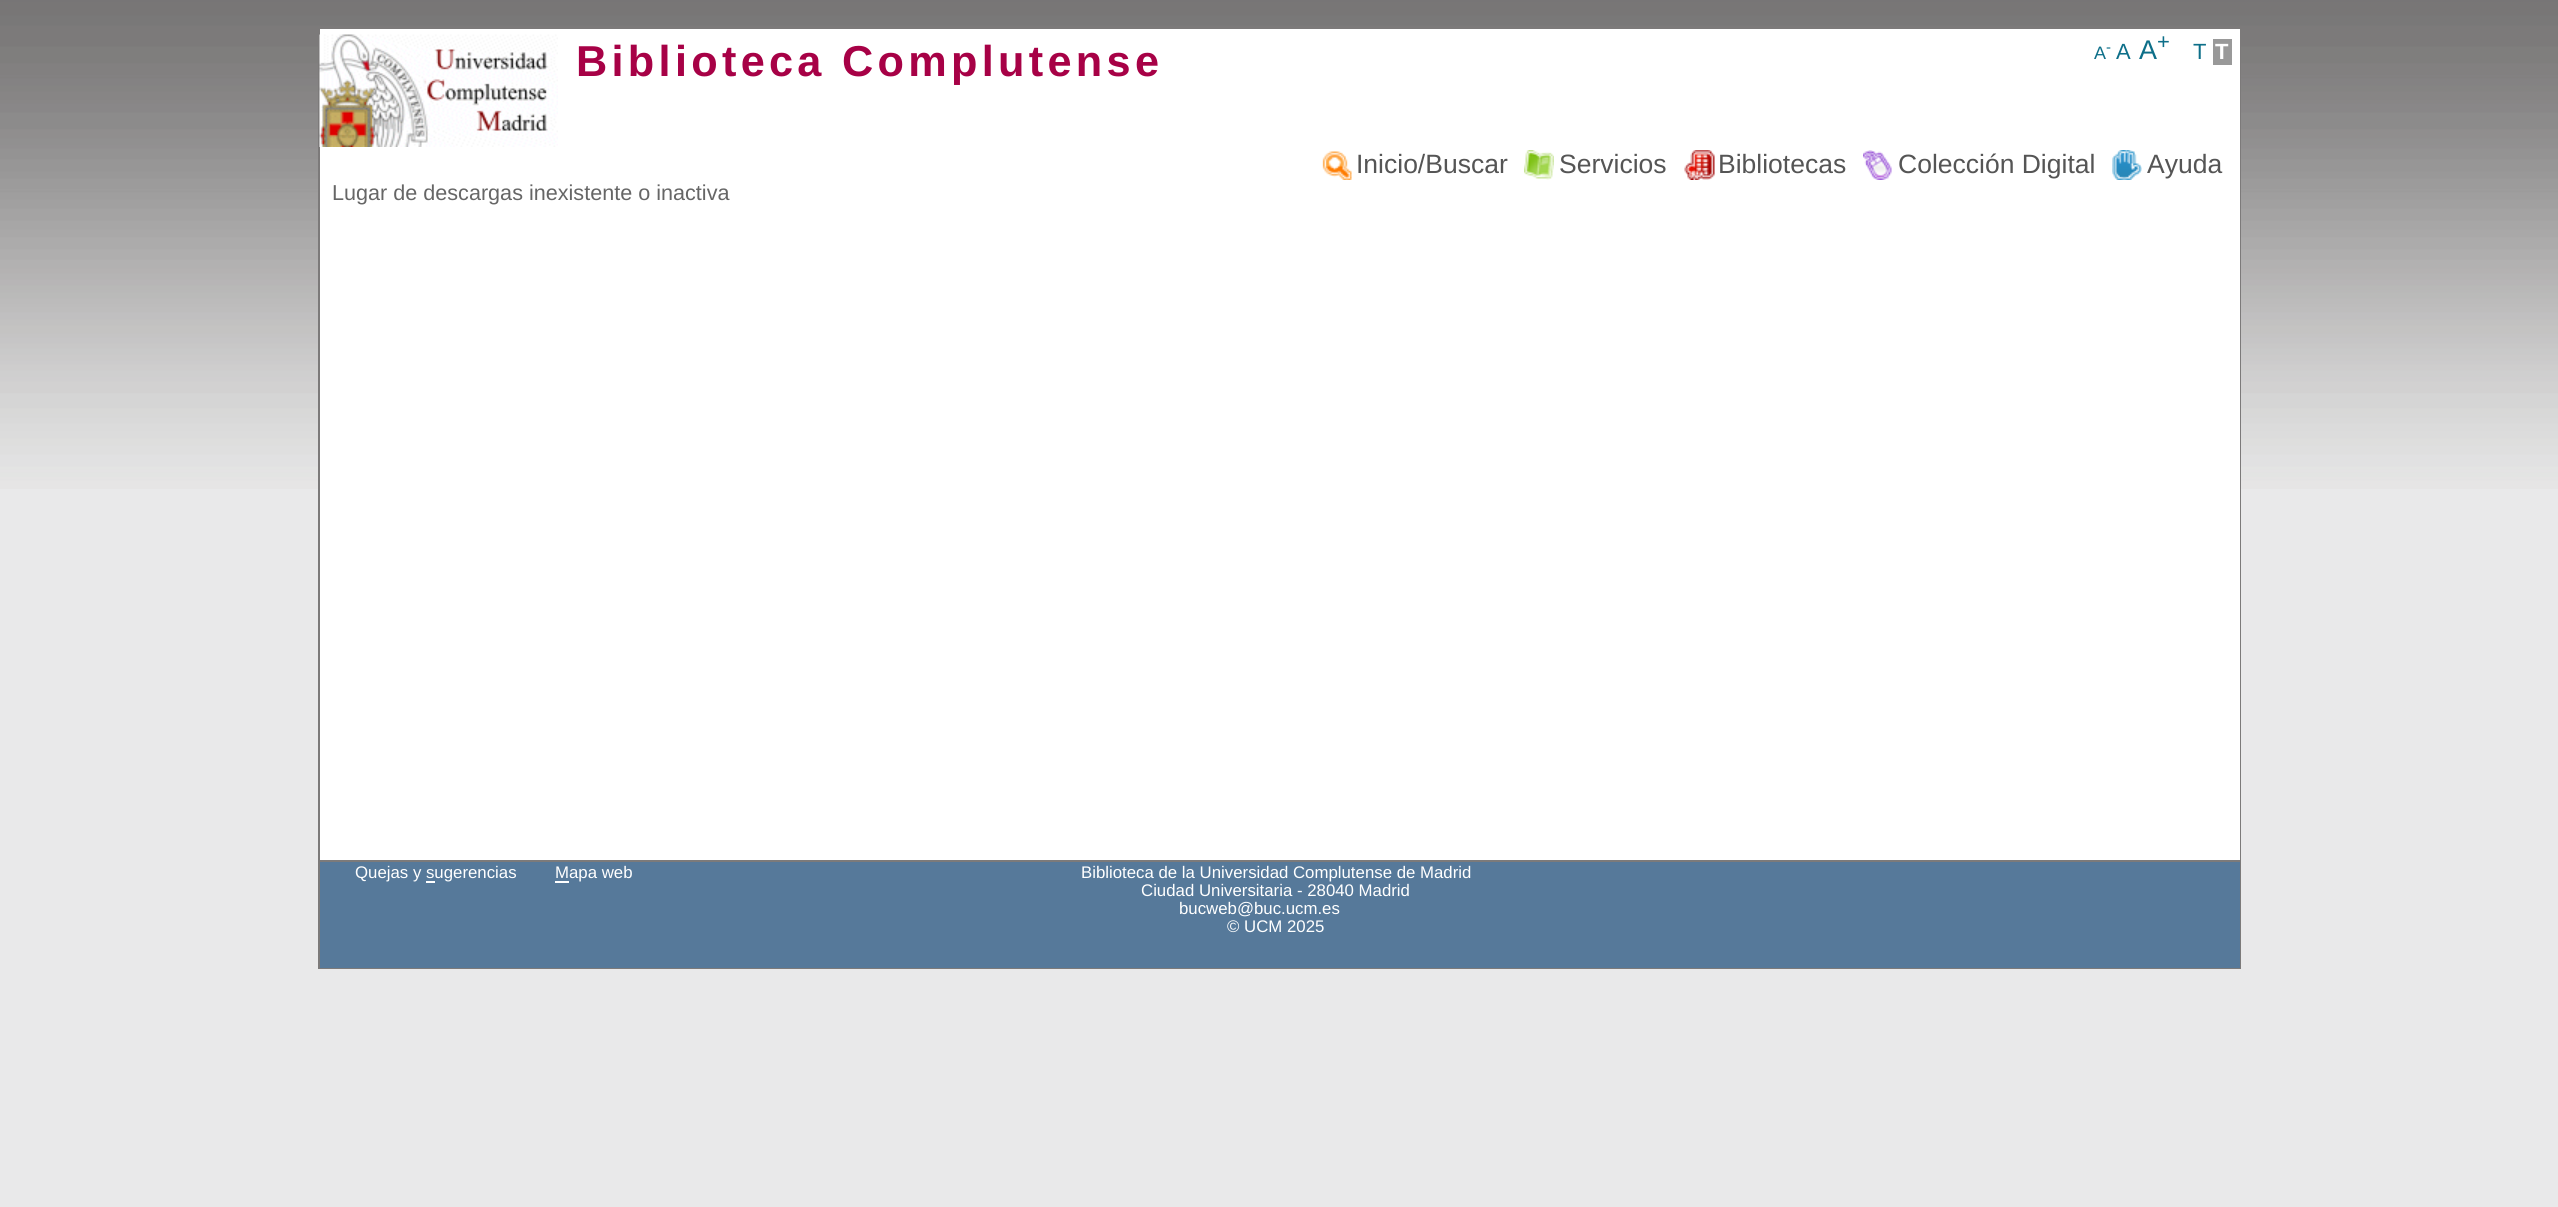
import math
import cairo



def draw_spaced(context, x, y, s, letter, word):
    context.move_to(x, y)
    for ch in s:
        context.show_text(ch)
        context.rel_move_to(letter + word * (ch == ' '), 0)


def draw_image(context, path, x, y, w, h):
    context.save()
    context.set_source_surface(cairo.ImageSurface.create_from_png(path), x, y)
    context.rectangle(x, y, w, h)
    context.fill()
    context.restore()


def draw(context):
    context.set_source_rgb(233 / 255, 233 / 255, 234 / 255)
    context.paint()
    draw_image(context, "images/1.png", 0, 0, 2558, 489)
    context.rectangle(319, 28, 1921, 940)
    context.set_source_rgb(124 / 255, 122 / 255, 122 / 255)
    context.stroke()
    context.set_source_rgb(1, 1, 1)
    context.rectangle(558, 29, 1682, 118)
    context.fill()
    context.rectangle(320, 29, 238, 6)
    context.fill()
    draw_image(context, "images/2.png", 319, 34, 239, 113)
    context.set_source_rgb(153 / 255, 153 / 255, 153 / 255)
    context.rectangle(2213, 39, 19, 26)
    context.fill()
    context.set_source_rgb(1, 1, 1)
    context.rectangle(320, 147, 1920, 713)
    context.fill()
    draw_image(context, "images/3.png", 1322, 151, 30, 29)
    draw_image(context, "images/4.png", 1524, 150, 30, 30)
    draw_image(context, "images/5.png", 1684, 150, 31, 30)
    draw_image(context, "images/6.png", 1863, 150, 29, 30)
    draw_image(context, "images/7.png", 2112, 150, 30, 30)
    context.set_source_rgb(86 / 255, 121 / 255, 154 / 255)
    context.rectangle(320, 862, 1920, 106)
    context.fill()
    context.set_source_rgb(124 / 255, 122 / 255, 122 / 255)
    context.rectangle(320, 860, 1920, 2)
    context.fill()
    context.set_source_rgb(1, 1, 1)
    context.rectangle(426, 881, 9, 2)
    context.fill()
    context.rectangle(555, 881, 14, 2)
    context.fill()
    context.select_font_face("Liberation Sans", cairo.FontSlant.NORMAL, cairo.FontWeight.BOLD)
    context.set_font_size(43.25)
    context.set_source_rgb(167 / 255, 1 / 255, 70 / 255)
    draw_spaced(context, 576, 76, "Biblioteca Complutense", 4.3, 0)
    context.select_font_face("Liberation Sans")
    context.set_font_size(18)
    context.set_source_rgb(13 / 255, 111 / 255, 137 / 255)
    context.move_to(2094, 59)
    context.show_text("A")
    context.set_font_size(15)
    context.move_to(2106, 52)
    context.show_text("-")
    context.set_font_size(22)
    context.move_to(2116, 59)
    context.show_text("A")
    context.set_font_size(27)
    context.move_to(2139, 59)
    context.show_text("A")
    context.set_font_size(22)
    context.move_to(2157, 49)
    context.show_text("+")
    context.move_to(2193, 59)
    context.show_text("T")
    context.select_font_face("Liberation Sans", cairo.FontSlant.NORMAL, cairo.FontWeight.BOLD)
    context.set_source_rgb(1, 1, 1)
    context.move_to(2215, 59)
    context.show_text("T")
    context.select_font_face("Liberation Sans")
    context.set_font_size(26.5)
    context.set_source_rgb(85 / 255, 85 / 255, 85 / 255)
    context.move_to(1356, 173)
    context.show_text("Inicio/Buscar")
    context.move_to(1559, 173)
    context.show_text("Servicios")
    context.move_to(1718, 173)
    context.show_text("Bibliotecas")
    context.move_to(1898, 173)
    context.show_text("Colección Digital")
    context.move_to(2147, 173)
    context.show_text("Ayuda")
    context.set_font_size(21.6)
    context.set_source_rgb(102 / 255, 102 / 255, 102 / 255)
    context.move_to(332, 200)
    context.show_text("Lugar de descargas inexistente o inactiva")
    context.set_font_size(16.8)
    context.set_source_rgb(1, 1, 1)
    context.move_to(355, 878)
    context.show_text("Quejas y sugerencias")
    context.move_to(555, 878)
    context.show_text("Mapa web")
    context.move_to(1081, 878)
    context.show_text("Biblioteca de la Universidad Complutense de Madrid")
    context.move_to(1141, 896)
    context.show_text("Ciudad Universitaria - 28040 Madrid")
    context.move_to(1179, 914)
    context.show_text("bucweb@buc.ucm.es")
    context.move_to(1227, 932)
    context.show_text("© UCM 2025")


surface = cairo.ImageSurface(cairo.Format.RGB24, 2558, 1207)
context = cairo.Context(surface)
options = cairo.FontOptions()
options.set_hint_metrics(cairo.HintMetrics.OFF)
options.set_hint_style(cairo.HintStyle.NONE)
context.set_font_options(options)
context.set_miter_limit(4)
draw(context)
surface.write_to_png("out.png")
